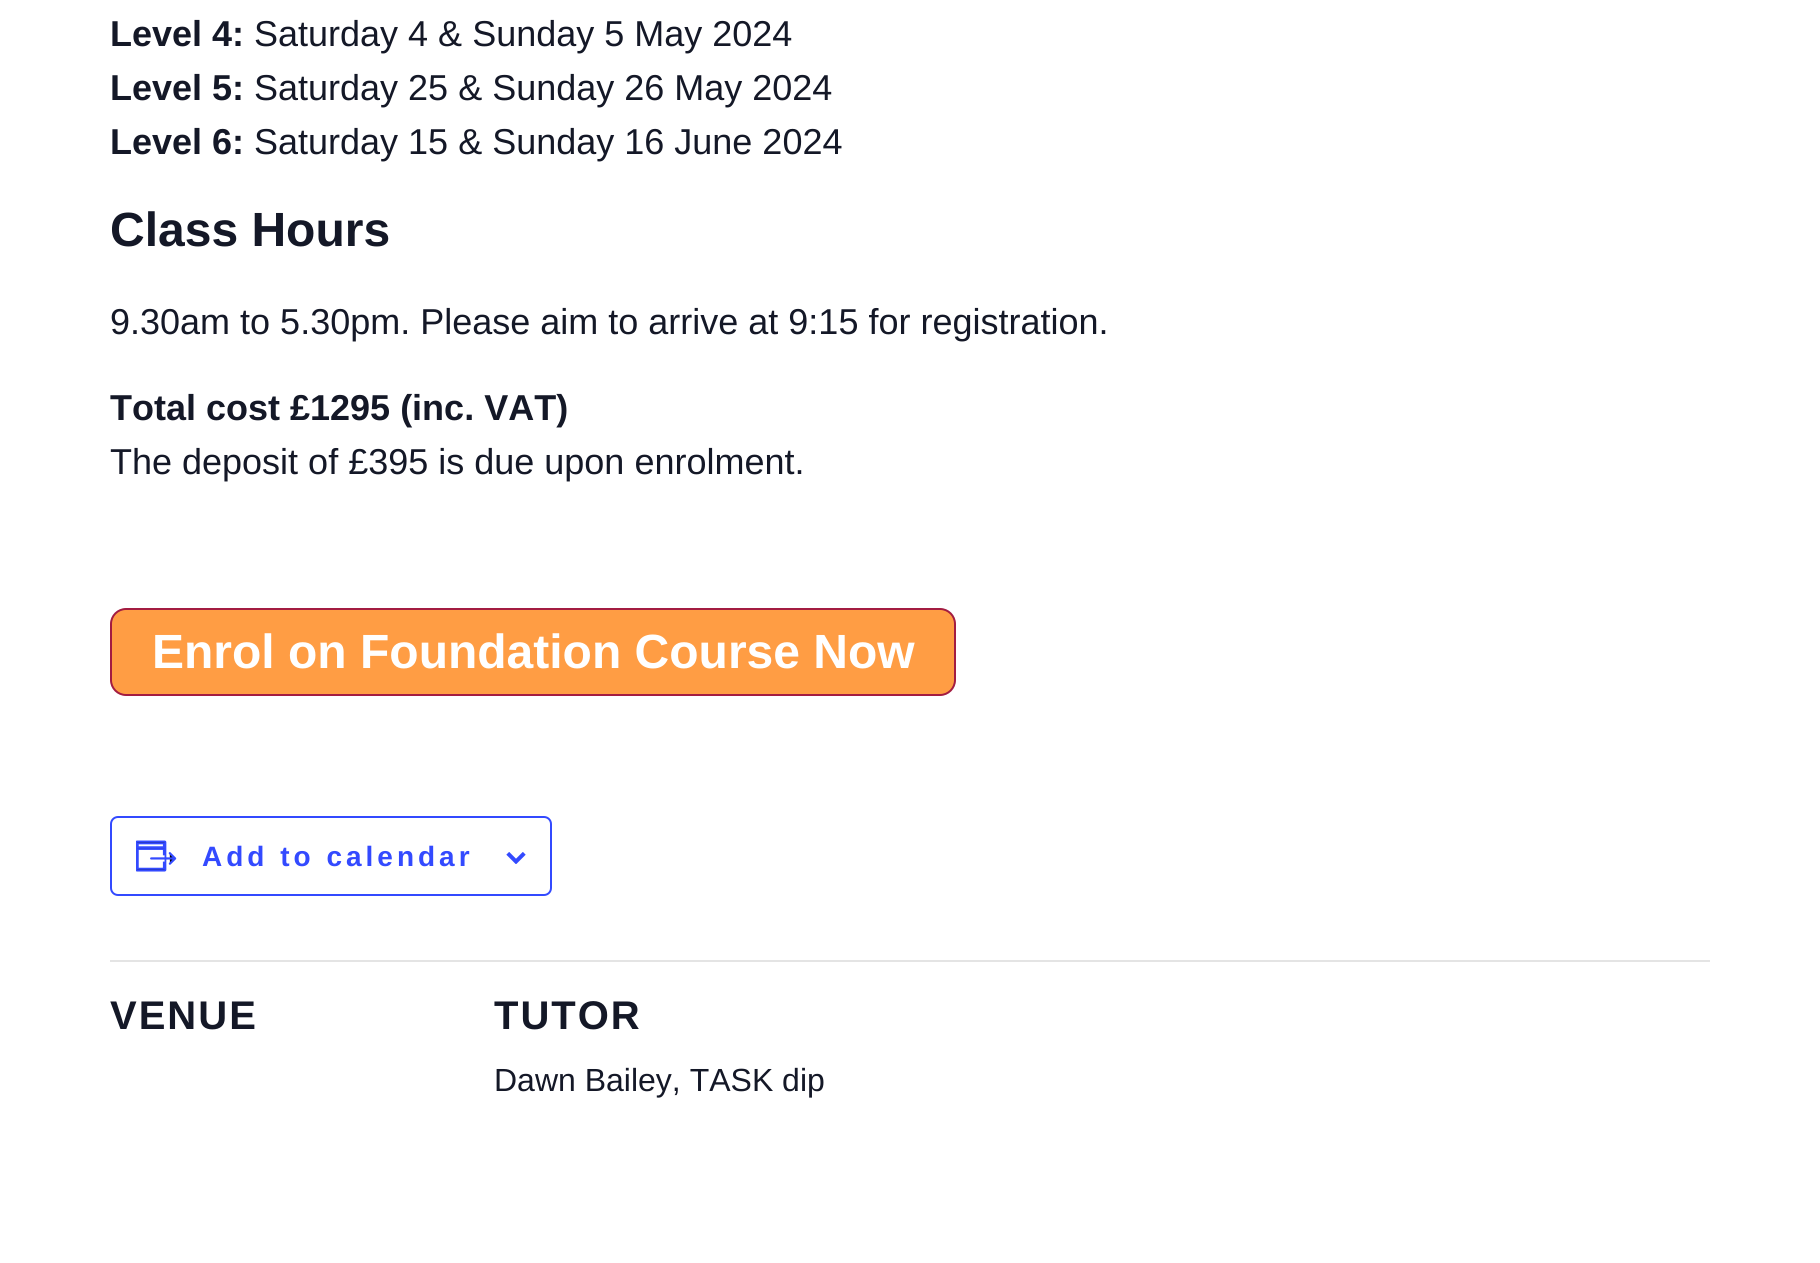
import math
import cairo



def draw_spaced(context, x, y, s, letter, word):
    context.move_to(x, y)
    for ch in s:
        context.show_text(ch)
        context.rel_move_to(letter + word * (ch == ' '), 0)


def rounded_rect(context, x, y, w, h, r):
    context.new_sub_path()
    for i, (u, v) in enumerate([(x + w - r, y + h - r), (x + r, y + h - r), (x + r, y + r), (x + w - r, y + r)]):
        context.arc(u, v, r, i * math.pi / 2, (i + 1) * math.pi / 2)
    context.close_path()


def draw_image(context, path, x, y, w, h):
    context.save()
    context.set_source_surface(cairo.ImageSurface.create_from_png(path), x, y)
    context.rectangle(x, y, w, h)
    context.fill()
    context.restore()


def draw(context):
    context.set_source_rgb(1, 1, 1)
    context.paint()
    context.set_source_rgb(1, 157 / 255, 68 / 255)
    rounded_rect(context, 111, 609, 844, 86, 15)
    context.fill_preserve()
    context.set_source_rgb(163 / 255, 28 / 255, 65 / 255)
    context.stroke()
    rounded_rect(context, 111, 817, 440, 78, 7)
    context.set_source_rgb(51 / 255, 74 / 255, 1)
    context.stroke()
    draw_image(context, "images/1.png", 136, 840, 41, 32)
    draw_image(context, "images/2.png", 506, 852, 20, 12)
    context.set_source_rgb(228 / 255, 228 / 255, 228 / 255)
    context.rectangle(110, 960, 1600, 2)
    context.fill()
    context.select_font_face("Liberation Sans", cairo.FontSlant.NORMAL, cairo.FontWeight.BOLD)
    context.set_font_size(36)
    context.set_source_rgb(20 / 255, 24 / 255, 39 / 255)
    context.move_to(110, 46)
    context.show_text("Level 4:")
    context.select_font_face("Liberation Sans")
    context.move_to(254, 46)
    context.show_text("Saturday 4 & Sunday 5 May 2024")
    context.select_font_face("Liberation Sans", cairo.FontSlant.NORMAL, cairo.FontWeight.BOLD)
    context.move_to(110, 100)
    context.show_text("Level 5:")
    context.select_font_face("Liberation Sans")
    context.move_to(254, 100)
    context.show_text("Saturday 25 & Sunday 26 May 2024")
    context.select_font_face("Liberation Sans", cairo.FontSlant.NORMAL, cairo.FontWeight.BOLD)
    context.move_to(110, 154)
    context.show_text("Level 6:")
    context.select_font_face("Liberation Sans")
    context.move_to(254, 154)
    context.show_text("Saturday 15 & Sunday 16 June 2024")
    context.select_font_face("Liberation Sans", cairo.FontSlant.NORMAL, cairo.FontWeight.BOLD)
    context.set_font_size(48)
    context.move_to(110, 246)
    context.show_text("Class Hours")
    context.select_font_face("Liberation Sans")
    context.set_font_size(36)
    context.move_to(110, 334)
    context.show_text("9.30am to 5.30pm. Please aim to arrive at 9:15 for registration.")
    context.select_font_face("Liberation Sans", cairo.FontSlant.NORMAL, cairo.FontWeight.BOLD)
    context.move_to(110, 420)
    context.show_text("Total cost £1295 (inc. VAT)")
    context.select_font_face("Liberation Sans")
    context.move_to(110, 474)
    context.show_text("The deposit of £395 is due upon enrolment.")
    context.select_font_face("Liberation Sans", cairo.FontSlant.NORMAL, cairo.FontWeight.BOLD)
    context.set_font_size(48)
    context.set_source_rgb(1, 1, 1)
    context.move_to(152, 668)
    context.show_text("Enrol on Foundation Course Now")
    context.set_font_size(28)
    context.set_source_rgb(51 / 255, 74 / 255, 1)
    draw_spaced(context, 202, 866, "Add to calendar", 4, 0)
    context.set_font_size(40)
    context.set_source_rgb(20 / 255, 24 / 255, 39 / 255)
    draw_spaced(context, 110, 1029, "VENUE", 2, 0)
    draw_spaced(context, 494, 1029, "TUTOR", 2, 0)
    context.select_font_face("Liberation Sans")
    context.set_font_size(32)
    context.move_to(494, 1091)
    context.show_text("Dawn Bailey, TASK dip")


surface = cairo.ImageSurface(cairo.Format.RGB24, 1820, 1263)
context = cairo.Context(surface)
options = cairo.FontOptions()
options.set_hint_metrics(cairo.HintMetrics.OFF)
options.set_hint_style(cairo.HintStyle.NONE)
context.set_font_options(options)
context.set_miter_limit(4)
draw(context)
surface.write_to_png("out.png")
